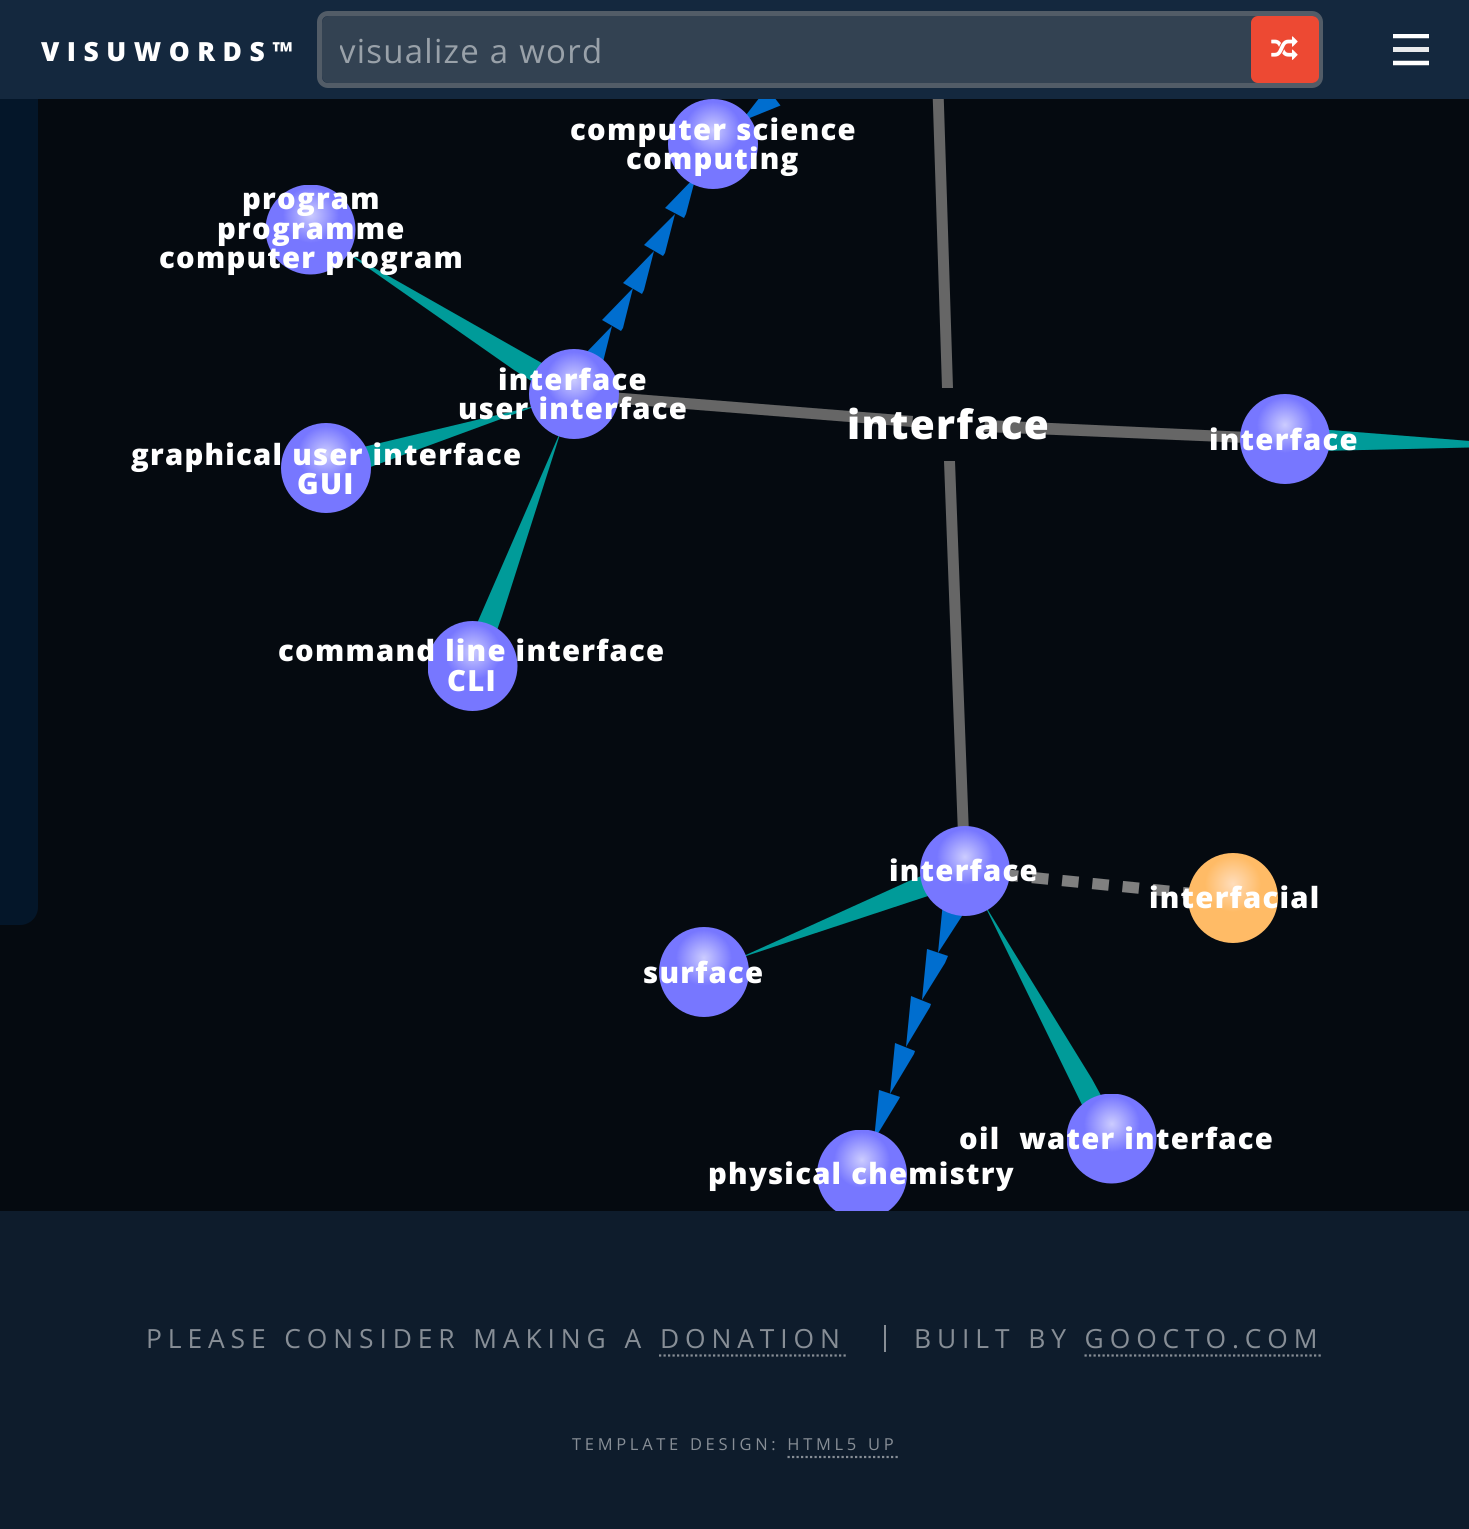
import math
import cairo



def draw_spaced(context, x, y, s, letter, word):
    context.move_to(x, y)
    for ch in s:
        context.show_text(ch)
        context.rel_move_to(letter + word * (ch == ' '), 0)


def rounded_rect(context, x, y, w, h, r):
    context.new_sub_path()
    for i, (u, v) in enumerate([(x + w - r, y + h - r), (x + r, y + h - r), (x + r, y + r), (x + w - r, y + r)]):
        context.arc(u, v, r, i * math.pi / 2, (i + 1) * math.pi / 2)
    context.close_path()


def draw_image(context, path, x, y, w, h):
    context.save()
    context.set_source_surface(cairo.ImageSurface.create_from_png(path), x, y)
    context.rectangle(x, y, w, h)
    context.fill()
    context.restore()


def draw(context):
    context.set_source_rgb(14 / 255, 28 / 255, 44 / 255)
    context.paint()
    context.set_source_rgb(5 / 255, 10 / 255, 16 / 255)
    context.rectangle(0, 99, 1469, 1112)
    context.fill()
    context.set_source_rgb(4 / 255, 22 / 255, 41 / 255)
    context.new_path()
    context.move_to(0, -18)
    context.line_to(20, -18)
    context.curve_to(30, -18, 38, -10, 38, 0)
    context.line_to(38, 907)
    context.curve_to(38, 917, 30, 925, 20, 925)
    context.line_to(0, 925)
    context.close_path()
    context.fill()
    context.set_source_rgb(0, 110 / 255, 207 / 255)
    context.new_path()
    context.move_to(780.5, 105.5)
    context.line_to(767.5, 88.5)
    context.line_to(765, 90.5)
    context.line_to(741, 121.5)
    context.close_path()
    context.fill()
    context.set_source_rgb(102 / 255, 102 / 255, 102 / 255)
    context.new_path()
    context.move_to(942, 388)
    context.line_to(930, 12)
    context.line_to(941, 12)
    context.line_to(953, 388)
    context.close_path()
    context.fill()
    context.set_source_rgb(20 / 255, 40 / 255, 62 / 255)
    context.rectangle(0, 0, 1469, 99)
    context.fill()
    rounded_rect(context, 319.5, 13.5, 1001, 72, 8.5)
    context.set_source_rgb(82 / 255, 92 / 255, 103 / 255)
    context.set_line_width(5)
    context.stroke()
    context.set_source_rgba(144 / 255, 144 / 255, 144 / 255, 0.25)
    rounded_rect(context, 322, 16, 997, 67, 7)
    context.fill()
    context.set_source_rgb(237 / 255, 73 / 255, 51 / 255)
    rounded_rect(context, 1251, 16, 68, 67, 7)
    context.fill()
    draw_image(context, "images/1.png", 1271, 36, 27, 24)
    context.save()
    context.rectangle(1393, 34, 36, 36)
    context.clip()
    context.new_path()
    context.move_to(1393, 36)
    context.line_to(1429, 36)
    context.set_source_rgb(1, 1, 1)
    context.set_line_width(4.5)
    context.stroke()
    context.restore()
    context.set_source_rgb(232 / 255, 234 / 255, 236 / 255)
    context.rectangle(1393, 47, 36, 5)
    context.fill()
    context.new_path()
    context.move_to(1393, 63)
    context.line_to(1429, 63)
    context.set_source_rgb(1, 1, 1)
    context.set_line_width(4.5)
    context.stroke()
    context.set_source_rgb(0, 110 / 255, 207 / 255)
    context.new_path()
    context.move_to(602, 366)
    context.line_to(612, 326)
    context.line_to(581, 358)
    context.line_to(600, 368)
    context.close_path()
    context.fill()
    context.new_path()
    context.move_to(602, 320)
    context.line_to(621, 331)
    context.line_to(623, 328)
    context.line_to(633, 288)
    context.close_path()
    context.fill()
    context.new_path()
    context.move_to(623, 283)
    context.line_to(642, 294)
    context.line_to(644, 290)
    context.line_to(654, 251)
    context.close_path()
    context.fill()
    context.new_path()
    context.move_to(644, 245)
    context.line_to(663, 256)
    context.line_to(665, 253)
    context.line_to(675, 214)
    context.close_path()
    context.fill()
    context.new_path()
    context.move_to(665, 208)
    context.line_to(684, 218)
    context.line_to(686, 214)
    context.line_to(696, 176)
    context.close_path()
    context.fill()
    gradient = cairo.RadialGradient(713, 130, 0, 713, 130, 28)
    gradient.add_color_stop_rgba(0, 204 / 255, 204 / 255, 1, 1)
    gradient.add_color_stop_rgba(1, 119 / 255, 119 / 255, 1, 1)
    context.set_source(gradient)
    context.arc(713, 144, 45, 0, 2 * math.pi)
    context.fill()
    context.set_source_rgb(0, 155 / 255, 153 / 255)
    context.new_path()
    context.move_to(341, 249)
    context.line_to(547, 366)
    context.line_to(536, 384)
    context.line_to(514, 370)
    context.close_path()
    context.fill()
    context.save()
    context.rectangle(266, 185, 90, 90)
    context.clip()
    gradient = cairo.RadialGradient(311, 215, 0, 311, 215, 28)
    gradient.add_color_stop_rgba(0, 204 / 255, 204 / 255, 1, 1)
    gradient.add_color_stop_rgba(1, 119 / 255, 119 / 255, 1, 1)
    context.set_source(gradient)
    context.arc(310.5, 229.5, 45, 0, 2 * math.pi)
    context.fill()
    context.restore()
    context.new_path()
    context.move_to(475, 628)
    context.line_to(495, 636)
    context.line_to(502, 616)
    context.line_to(562, 428)
    context.close_path()
    context.fill()
    context.new_path()
    context.move_to(359, 448)
    context.line_to(365, 469)
    context.line_to(539, 405)
    context.close_path()
    context.fill()
    context.set_source_rgb(102 / 255, 102 / 255, 102 / 255)
    context.new_path()
    context.move_to(912, 427)
    context.line_to(609, 403)
    context.line_to(610, 392)
    context.line_to(913, 416)
    context.close_path()
    context.fill()
    gradient = cairo.RadialGradient(574, 380, 0, 574, 380, 28)
    gradient.add_color_stop_rgba(0, 204 / 255, 204 / 255, 1, 1)
    gradient.add_color_stop_rgba(1, 119 / 255, 119 / 255, 1, 1)
    context.set_source(gradient)
    context.arc(574, 394, 45, 0, 2 * math.pi)
    context.fill()
    context.set_source_rgb(102 / 255, 102 / 255, 102 / 255)
    context.new_path()
    context.move_to(984, 432)
    context.line_to(1247, 443)
    context.line_to(1248, 432)
    context.line_to(985, 420)
    context.close_path()
    context.fill()
    context.set_source_rgb(0, 155 / 255, 153 / 255)
    context.new_path()
    context.move_to(1330, 430)
    context.line_to(1321, 429)
    context.line_to(1320, 451)
    context.line_to(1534, 446)
    context.close_path()
    context.fill()
    gradient = cairo.RadialGradient(1285, 425, 0, 1285, 425, 28)
    gradient.add_color_stop_rgba(0, 204 / 255, 204 / 255, 1, 1)
    gradient.add_color_stop_rgba(1, 119 / 255, 119 / 255, 1, 1)
    context.set_source(gradient)
    context.arc(1285, 439, 45, 0, 2 * math.pi)
    context.fill()
    gradient = cairo.RadialGradient(326, 454, 0, 326, 454, 28)
    gradient.add_color_stop_rgba(0, 204 / 255, 204 / 255, 1, 1)
    gradient.add_color_stop_rgba(1, 119 / 255, 119 / 255, 1, 1)
    context.set_source(gradient)
    context.arc(326, 468, 45, 0, 2 * math.pi)
    context.fill()
    context.set_source_rgb(102 / 255, 102 / 255, 102 / 255)
    context.new_path()
    context.move_to(955, 461)
    context.line_to(969, 835)
    context.line_to(958, 835)
    context.line_to(944, 461)
    context.close_path()
    context.fill()
    context.save()
    context.rectangle(428, 621, 90, 90)
    context.clip()
    gradient = cairo.RadialGradient(473, 652, 0, 473, 652, 28)
    gradient.add_color_stop_rgba(0, 204 / 255, 204 / 255, 1, 1)
    gradient.add_color_stop_rgba(1, 119 / 255, 119 / 255, 1, 1)
    context.set_source(gradient)
    context.arc(472.5, 666, 45, 0, 2 * math.pi)
    context.fill()
    context.restore()
    context.set_source_rgb(0, 155 / 255, 153 / 255)
    context.new_path()
    context.move_to(934, 894)
    context.line_to(926, 874)
    context.line_to(909, 881)
    context.line_to(737, 959)
    context.close_path()
    context.fill()
    draw_image(context, "images/2.png", 1008, 869, 182, 30)
    context.set_source_rgb(0, 110 / 255, 207 / 255)
    context.new_path()
    context.move_to(962, 916)
    context.line_to(938, 953)
    context.line_to(943, 902)
    context.line_to(964, 909)
    context.close_path()
    context.fill()
    context.set_source_rgb(0, 155 / 255, 153 / 255)
    context.new_path()
    context.move_to(1085, 1111)
    context.line_to(1104, 1101)
    context.line_to(1092, 1079)
    context.line_to(983, 902)
    context.close_path()
    context.fill()
    gradient = cairo.RadialGradient(965, 857, 0, 965, 857, 28)
    gradient.add_color_stop_rgba(0, 204 / 255, 204 / 255, 1, 1)
    gradient.add_color_stop_rgba(1, 119 / 255, 119 / 255, 1, 1)
    context.set_source(gradient)
    context.arc(965, 871, 45, 0, 2 * math.pi)
    context.fill()
    gradient = cairo.RadialGradient(1233, 884, 0, 1233, 884, 28)
    gradient.add_color_stop_rgba(0, 1, 221 / 255, 187 / 255, 1)
    gradient.add_color_stop_rgba(1, 1, 187 / 255, 102 / 255, 1)
    context.set_source(gradient)
    context.arc(1233, 898, 45, 0, 2 * math.pi)
    context.fill()
    gradient = cairo.RadialGradient(704, 958, 0, 704, 958, 28)
    gradient.add_color_stop_rgba(0, 204 / 255, 204 / 255, 1, 1)
    gradient.add_color_stop_rgba(1, 119 / 255, 119 / 255, 1, 1)
    context.set_source(gradient)
    context.arc(704, 972, 45, 0, 2 * math.pi)
    context.fill()
    context.set_source_rgb(0, 110 / 255, 207 / 255)
    context.new_path()
    context.move_to(948, 956)
    context.line_to(927, 949)
    context.line_to(922, 1000)
    context.line_to(945, 963)
    context.close_path()
    context.fill()
    context.new_path()
    context.move_to(931, 1004)
    context.line_to(911, 996)
    context.line_to(906, 1047)
    context.line_to(930, 1007)
    context.close_path()
    context.fill()
    context.new_path()
    context.move_to(915, 1051)
    context.line_to(895, 1043)
    context.line_to(890, 1094)
    context.line_to(914, 1054)
    context.close_path()
    context.fill()
    context.new_path()
    context.move_to(874, 1140)
    context.line_to(899, 1099)
    context.line_to(900, 1097)
    context.line_to(879, 1090)
    context.close_path()
    context.fill()
    context.save()
    context.rectangle(1067, 1094, 90, 90)
    context.clip()
    gradient = cairo.RadialGradient(1112, 1124, 0, 1112, 1124, 28)
    gradient.add_color_stop_rgba(0, 204 / 255, 204 / 255, 1, 1)
    gradient.add_color_stop_rgba(1, 119 / 255, 119 / 255, 1, 1)
    context.set_source(gradient)
    context.arc(1111.5, 1138.5, 45, 0, 2 * math.pi)
    context.fill()
    context.restore()
    context.save()
    context.rectangle(817, 1130, 90, 81)
    context.clip()
    gradient = cairo.RadialGradient(862, 1160, 0, 862, 1160, 28)
    gradient.add_color_stop_rgba(0, 204 / 255, 204 / 255, 1, 1)
    gradient.add_color_stop_rgba(1, 119 / 255, 119 / 255, 1, 1)
    context.set_source(gradient)
    context.arc(862, 1174.5, 45, 0, 2 * math.pi)
    context.fill()
    context.restore()
    context.new_path()
    context.move_to(659, 1355.5)
    context.line_to(846, 1355.5)
    context.set_source_rgb(135 / 255, 142 / 255, 150 / 255)
    context.set_line_width(2.2)
    context.set_dash([2.25, 2.25])
    context.stroke()
    context.rectangle(884, 1325, 2, 27)
    context.fill()
    context.new_path()
    context.move_to(1084.5, 1355.5)
    context.line_to(1323, 1355.5)
    context.stroke()
    context.new_path()
    context.move_to(787.5, 1457)
    context.line_to(898, 1457)
    context.stroke()
    context.select_font_face("Open Sans ExtraBold")
    context.set_font_size(26.4)
    context.set_source_rgb(1, 1, 1)
    draw_spaced(context, 41, 61, "VISUWORDS™", 7.5, 0)
    context.save()
    context.rectangle(340, 27, 963, 45)
    context.clip()
    context.select_font_face("Open Sans")
    context.set_font_size(33)
    context.set_source_rgb(153 / 255, 161 / 255, 169 / 255)
    draw_spaced(context, 339, 63, "visualize a word", 1.25, 0)
    context.restore()
    context.set_font_size(29.25)
    draw_spaced(context, 570, 140, "computer science", 1.25, 0)
    draw_spaced(context, 626, 169, "computing", 1.25, 0)
    draw_spaced(context, 242, 209, "program", 1.25, 0)
    draw_spaced(context, 217, 239, "programme", 1.25, 0)
    draw_spaced(context, 159, 268, "computer program", 1.25, 0)
    draw_spaced(context, 498, 390, "interface", 1.25, 0)
    draw_spaced(context, 458, 419, "user interface", 1.25, 0)
    context.set_font_size(40.5)
    draw_spaced(context, 847, 439, "interface", 1.25, 0)
    context.set_font_size(29.25)
    draw_spaced(context, 1209, 450, "interface", 1.25, 0)
    draw_spaced(context, 131, 465, "graphical user interface", 1.25, 0)
    draw_spaced(context, 297, 494, "GUI", 1.25, 0)
    draw_spaced(context, 278, 661, "command line interface", 1.25, 0)
    draw_spaced(context, 447, 691, "CLI", 1.25, 0)
    draw_spaced(context, 889, 881, "interface", 1.25, 0)
    draw_spaced(context, 1149, 908, "interfacial", 1.25, 0)
    draw_spaced(context, 643, 983, "surface", 1.25, 0)
    draw_spaced(context, 959, 1149, "oil‑water interface", 1.25, 0)
    draw_spaced(context, 708, 1184, "physical chemistry", 1.25, 0)
    context.select_font_face("Open Sans")
    context.set_font_size(26.4)
    context.set_source_rgb(135 / 255, 142 / 255, 150 / 255)
    draw_spaced(context, 146, 1348, "PLEASE CONSIDER MAKING A", 5.9, 0)
    draw_spaced(context, 660, 1348, "DONATION", 5.9, 0)
    draw_spaced(context, 914, 1348, "BUILT BY GOOCTO.COM", 5.9, 0)
    context.set_font_size(16.5)
    draw_spaced(context, 572, 1450, "TEMPLATE DESIGN: HTML5 UP", 3.7, 0)


surface = cairo.ImageSurface(cairo.Format.RGB24, 1469, 1529)
context = cairo.Context(surface)
options = cairo.FontOptions()
options.set_hint_metrics(cairo.HintMetrics.OFF)
options.set_hint_style(cairo.HintStyle.NONE)
context.set_font_options(options)
context.set_miter_limit(4)
draw(context)
surface.write_to_png("out.png")
